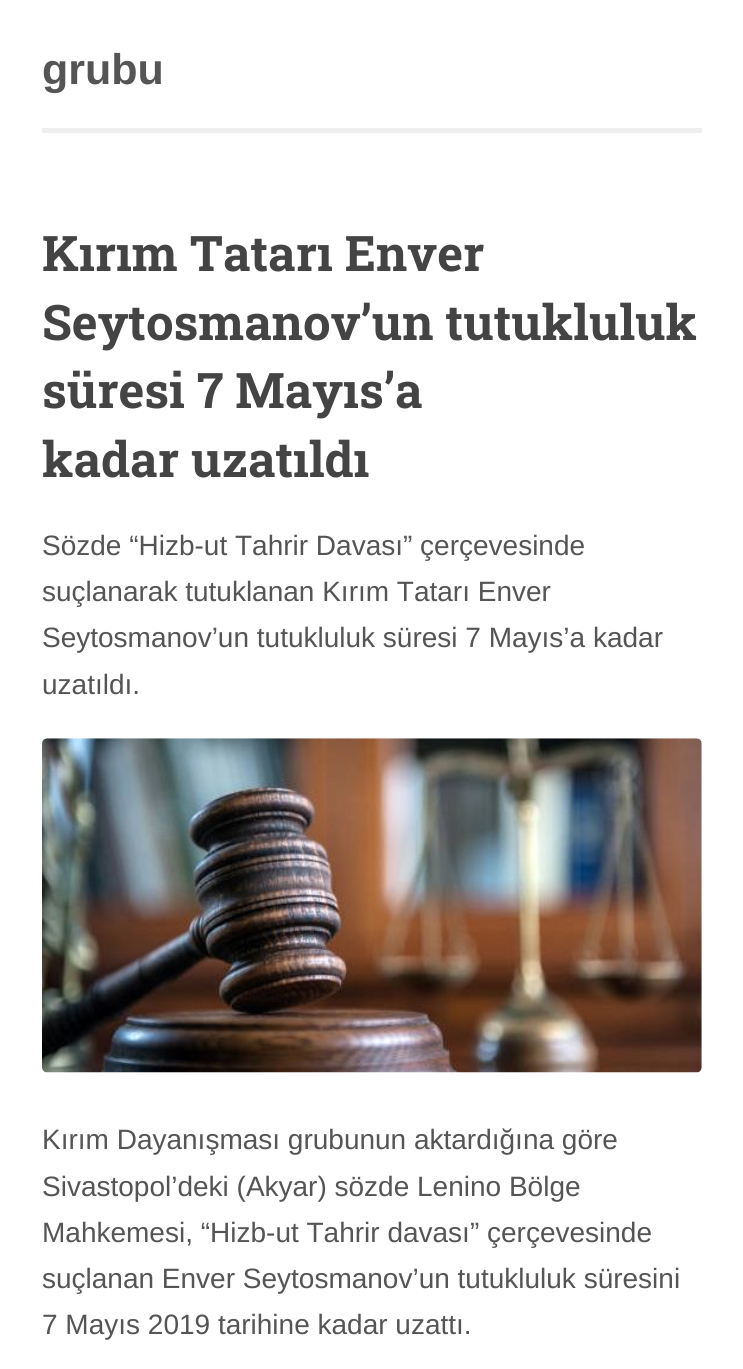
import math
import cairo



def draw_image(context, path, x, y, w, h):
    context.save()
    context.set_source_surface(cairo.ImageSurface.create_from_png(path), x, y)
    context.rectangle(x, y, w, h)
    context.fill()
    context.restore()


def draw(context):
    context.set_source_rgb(1, 1, 1)
    context.paint()
    context.set_source_rgb(238 / 255, 238 / 255, 238 / 255)
    context.rectangle(42, 128, 660, 5)
    context.fill()
    draw_image(context, "images/1.png", 42, 738, 660, 335)
    context.select_font_face("Arimo", cairo.FontSlant.NORMAL, cairo.FontWeight.BOLD)
    context.set_font_size(43)
    context.set_source_rgb(85 / 255, 85 / 255, 85 / 255)
    context.move_to(42, 84)
    context.show_text("grubu")
    context.select_font_face("Roboto Slab", cairo.FontSlant.NORMAL, cairo.FontWeight.BOLD)
    context.set_font_size(49)
    context.set_source_rgb(68 / 255, 68 / 255, 68 / 255)
    context.move_to(42, 271)
    context.show_text("Kırım Tatarı Enver")
    context.move_to(42, 340)
    context.show_text("Seytosmanov’un tutukluluk")
    context.move_to(42, 408)
    context.show_text("süresi 7 Mayıs’a")
    context.move_to(42, 477)
    context.show_text("kadar uzatıldı")
    context.select_font_face("Arimo")
    context.set_font_size(28)
    context.set_source_rgb(85 / 255, 85 / 255, 85 / 255)
    context.move_to(42, 555)
    context.show_text("Sözde “Hizb-ut Tahrir Davası” çerçevesinde")
    context.move_to(42, 601)
    context.show_text("suçlanarak tutuklanan Kırım Tatarı Enver")
    context.move_to(42, 647)
    context.show_text("Seytosmanov’un tutukluluk süresi 7 Mayıs’a kadar")
    context.move_to(42, 694)
    context.show_text("uzatıldı.")
    context.move_to(42, 1149)
    context.show_text("Kırım Dayanışması grubunun aktardığına göre")
    context.move_to(42, 1196)
    context.show_text("Sivastopol’deki (Akyar) sözde Lenino Bölge")
    context.move_to(42, 1242)
    context.show_text("Mahkemesi, “Hizb-ut Tahrir davası” çerçevesinde")
    context.move_to(42, 1288)
    context.show_text("suçlanan Enver Seytosmanov’un tutukluluk süresini")
    context.move_to(42, 1334)
    context.show_text("7 Mayıs 2019 tarihine kadar uzattı.")


surface = cairo.ImageSurface(cairo.Format.RGB24, 743, 1369)
context = cairo.Context(surface)
options = cairo.FontOptions()
options.set_hint_metrics(cairo.HintMetrics.OFF)
options.set_hint_style(cairo.HintStyle.NONE)
context.set_font_options(options)
context.set_miter_limit(4)
draw(context)
surface.write_to_png("out.png")
